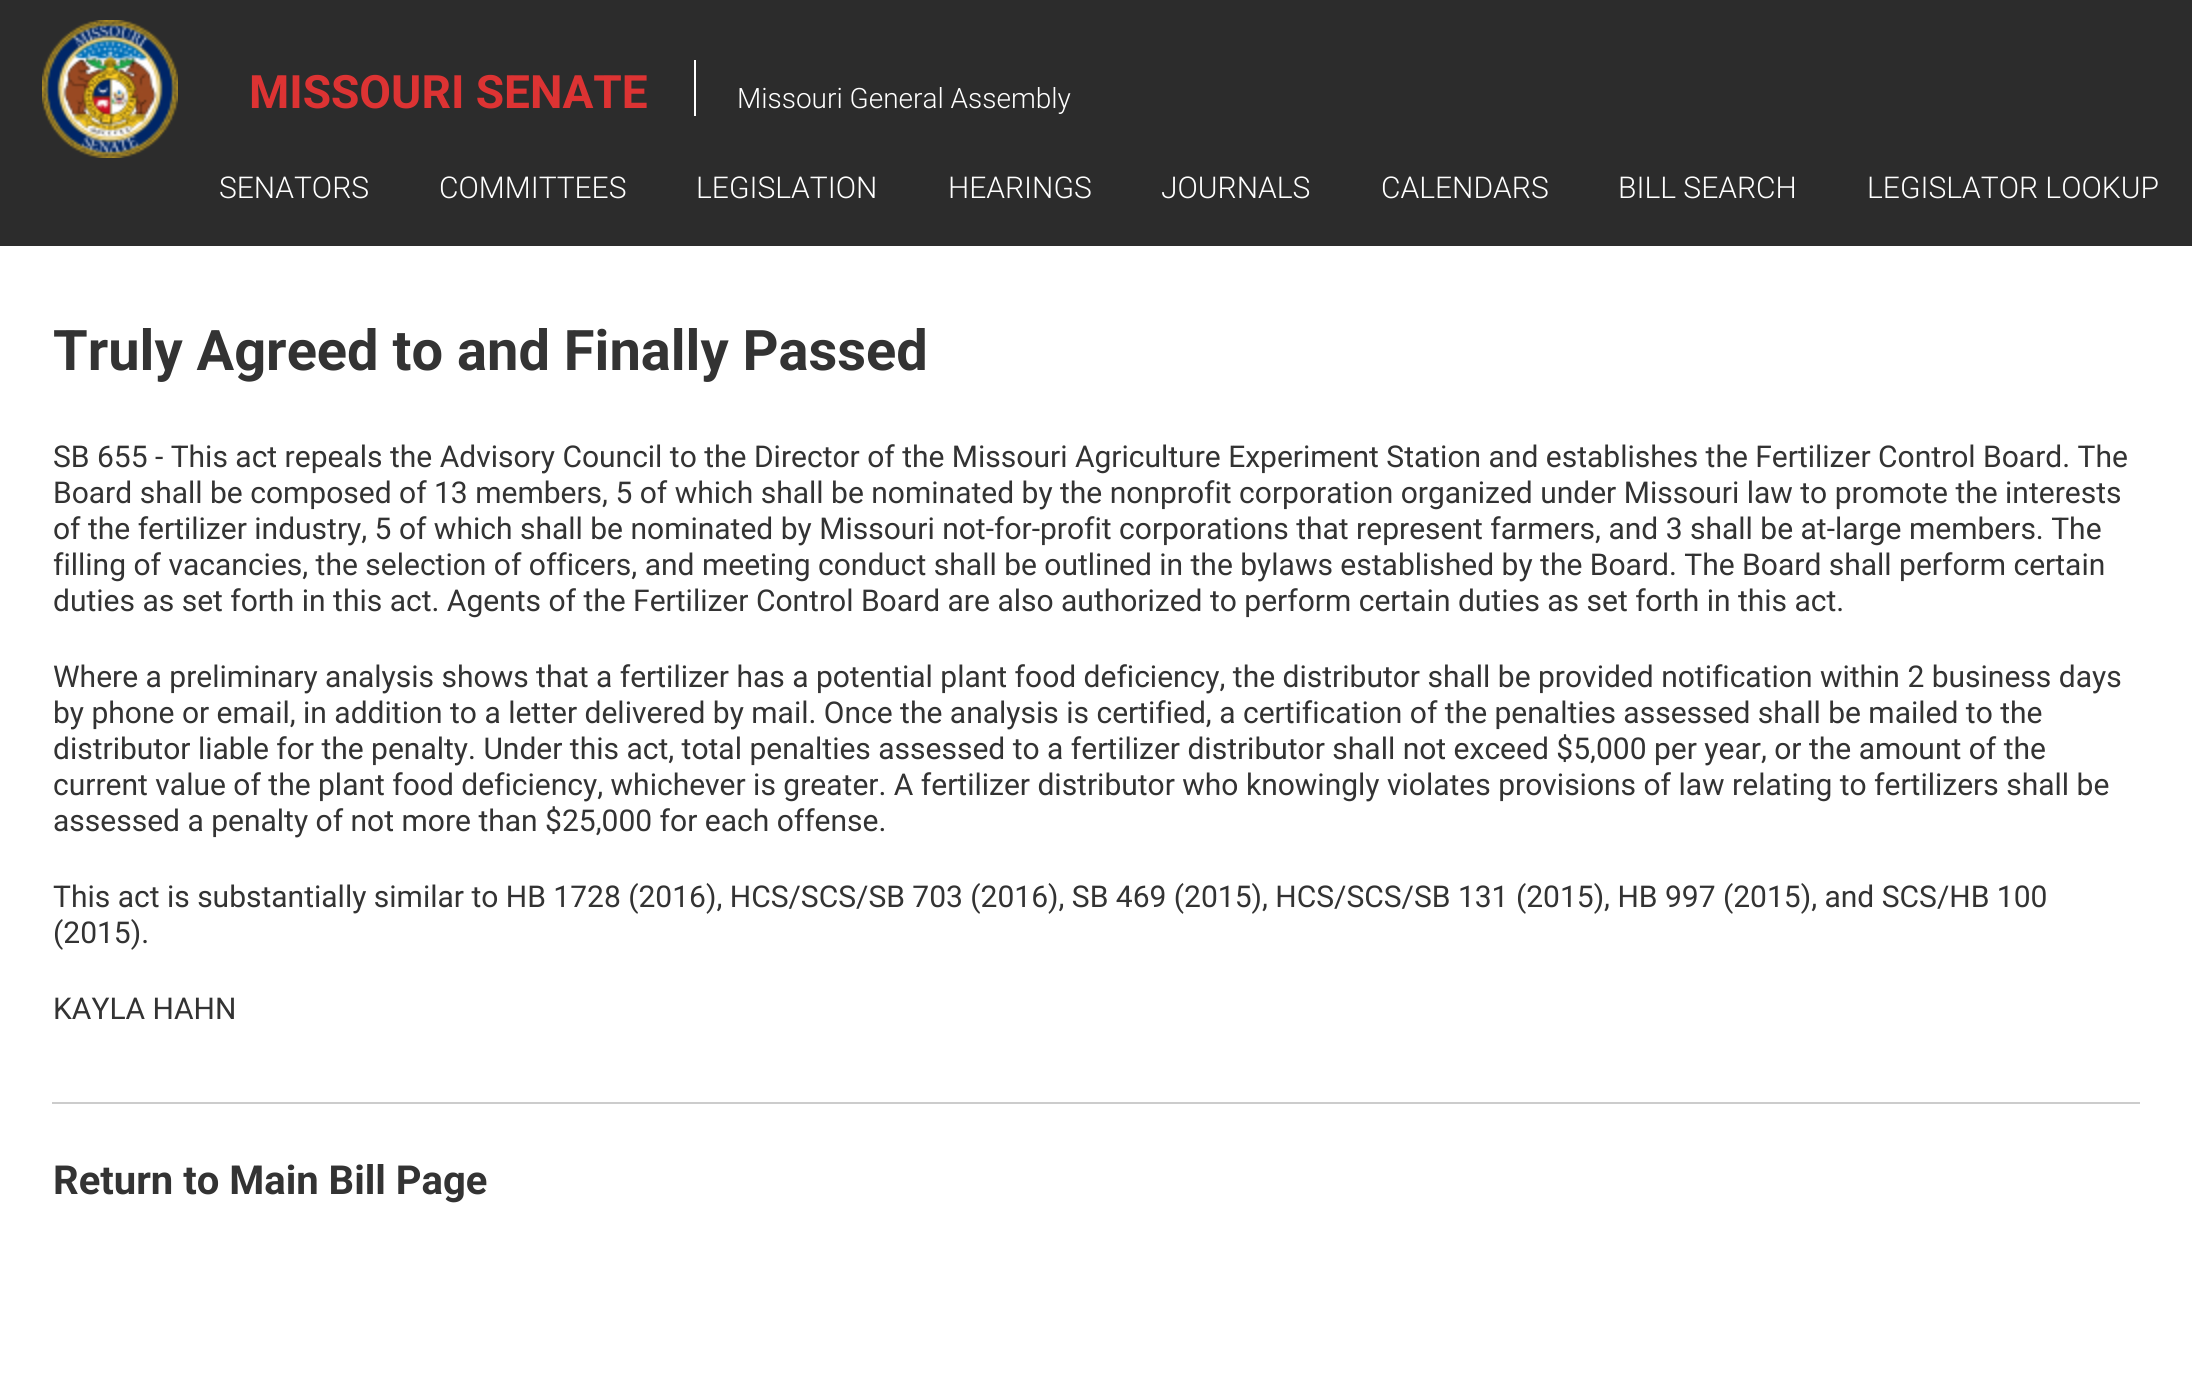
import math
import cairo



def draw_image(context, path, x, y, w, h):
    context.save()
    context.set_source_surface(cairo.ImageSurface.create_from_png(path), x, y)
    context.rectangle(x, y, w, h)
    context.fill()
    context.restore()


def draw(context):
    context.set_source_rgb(1, 1, 1)
    context.paint()
    context.set_source_rgb(44 / 255, 44 / 255, 44 / 255)
    context.rectangle(0, 0, 2192, 246)
    context.fill()
    draw_image(context, "images/1.png", 42, 20, 136, 138)
    context.set_source_rgb(1, 1, 1)
    context.rectangle(694, 60, 2, 56)
    context.fill()
    context.set_source_rgb(204 / 255, 204 / 255, 204 / 255)
    context.rectangle(52, 1102, 2088, 2)
    context.fill()
    context.select_font_face("Roboto", cairo.FontSlant.NORMAL, cairo.FontWeight.BOLD)
    context.set_font_size(46)
    context.set_source_rgb(221 / 255, 51 / 255, 51 / 255)
    context.move_to(249, 108)
    context.show_text("MISSOURI SENATE")
    context.select_font_face("Roboto Light")
    context.set_font_size(28)
    context.set_source_rgb(1, 1, 1)
    context.move_to(737, 108)
    context.show_text("Missouri General Assembly")
    context.set_font_size(30)
    context.move_to(219, 198)
    context.show_text("SENATORS")
    context.move_to(439, 198)
    context.show_text("COMMITTEES")
    context.move_to(696, 198)
    context.show_text("LEGISLATION")
    context.move_to(948, 198)
    context.show_text("HEARINGS")
    context.move_to(1161, 198)
    context.show_text("JOURNALS")
    context.move_to(1381, 198)
    context.show_text("CALENDARS")
    context.move_to(1618, 198)
    context.show_text("BILL SEARCH")
    context.move_to(1867, 198)
    context.show_text("LEGISLATOR LOOKUP")
    context.select_font_face("Roboto", cairo.FontSlant.NORMAL, cairo.FontWeight.BOLD)
    context.set_font_size(56)
    context.set_source_rgb(51 / 255, 51 / 255, 51 / 255)
    context.move_to(53, 370)
    context.show_text("Truly Agreed to and Finally Passed")
    context.select_font_face("Roboto")
    context.set_font_size(30)
    context.move_to(53, 467)
    context.show_text("SB 655 - This act repeals the Advisory Council to the Director of the Missouri Agriculture Experiment Station and establishes the Fertilizer Control Board. The")
    context.move_to(53, 503)
    context.show_text("Board shall be composed of 13 members, 5 of which shall be nominated by the nonprofit corporation organized under Missouri law to promote the interests")
    context.move_to(53, 539)
    context.show_text("of the fertilizer industry, 5 of which shall be nominated by Missouri not-for-profit corporations that represent farmers, and 3 shall be at-large members. The")
    context.move_to(53, 575)
    context.show_text("filling of vacancies, the selection of officers, and meeting conduct shall be outlined in the bylaws established by the Board. The Board shall perform certain")
    context.move_to(53, 611)
    context.show_text("duties as set forth in this act. Agents of the Fertilizer Control Board are also authorized to perform certain duties as set forth in this act.")
    context.move_to(53, 687)
    context.show_text("Where a preliminary analysis shows that a fertilizer has a potential plant food deficiency, the distributor shall be provided notification within 2 business days")
    context.move_to(53, 723)
    context.show_text("by phone or email, in addition to a letter delivered by mail. Once the analysis is certified, a certification of the penalties assessed shall be mailed to the")
    context.move_to(53, 759)
    context.show_text("distributor liable for the penalty. Under this act, total penalties assessed to a fertilizer distributor shall not exceed $5,000 per year, or the amount of the")
    context.move_to(53, 795)
    context.show_text("current value of the plant food deficiency, whichever is greater. A fertilizer distributor who knowingly violates provisions of law relating to fertilizers shall be")
    context.move_to(53, 831)
    context.show_text("assessed a penalty of not more than $25,000 for each offense.")
    context.move_to(53, 907)
    context.show_text("This act is substantially similar to HB 1728 (2016), HCS/SCS/SB 703 (2016), SB 469 (2015), HCS/SCS/SB 131 (2015), HB 997 (2015), and SCS/HB 100")
    context.move_to(53, 943)
    context.show_text("(2015).")
    context.move_to(53, 1019)
    context.show_text("KAYLA HAHN")
    context.select_font_face("Roboto", cairo.FontSlant.NORMAL, cairo.FontWeight.BOLD)
    context.set_font_size(40)
    context.move_to(53, 1194)
    context.show_text("Return to Main Bill Page")


surface = cairo.ImageSurface(cairo.Format.RGB24, 2192, 1391)
context = cairo.Context(surface)
options = cairo.FontOptions()
options.set_hint_metrics(cairo.HintMetrics.OFF)
options.set_hint_style(cairo.HintStyle.NONE)
context.set_font_options(options)
context.set_miter_limit(4)
draw(context)
surface.write_to_png("out.png")
